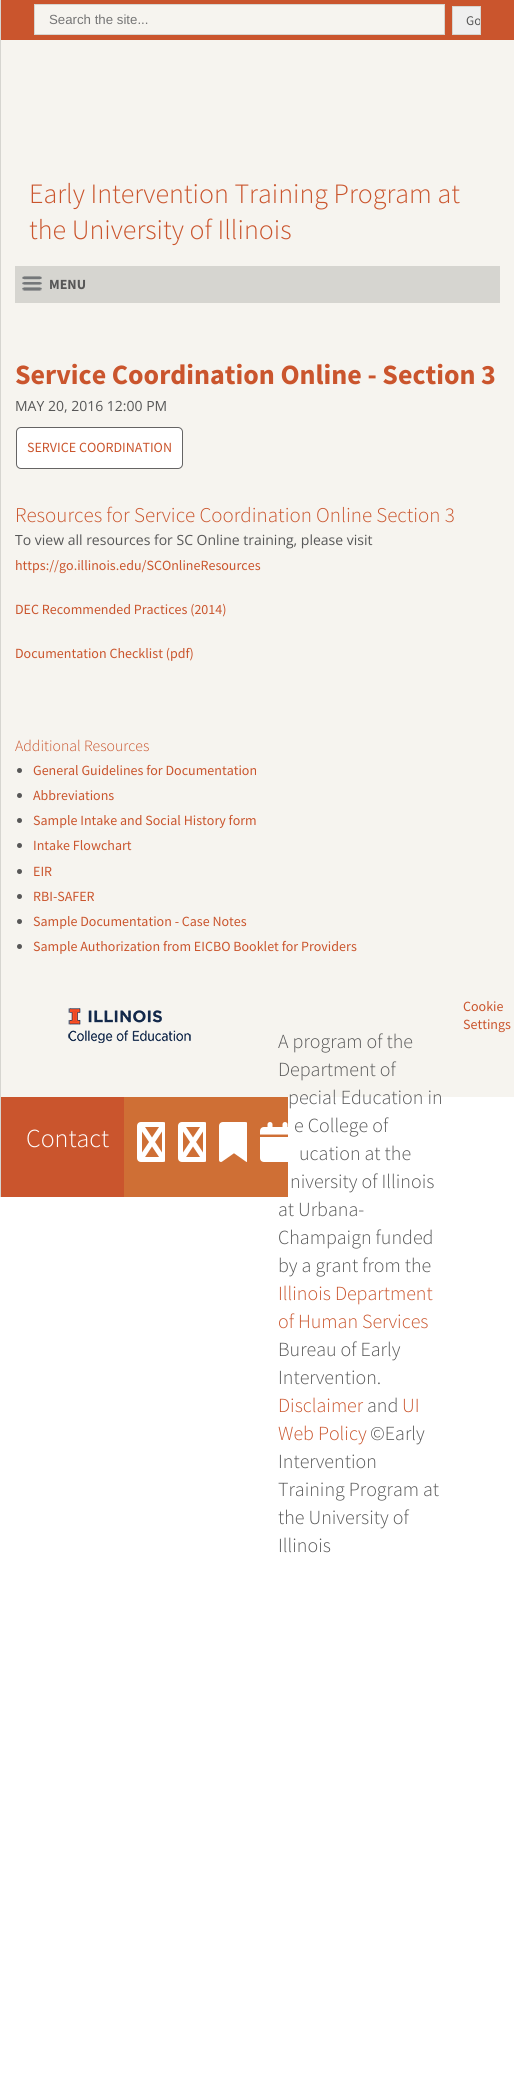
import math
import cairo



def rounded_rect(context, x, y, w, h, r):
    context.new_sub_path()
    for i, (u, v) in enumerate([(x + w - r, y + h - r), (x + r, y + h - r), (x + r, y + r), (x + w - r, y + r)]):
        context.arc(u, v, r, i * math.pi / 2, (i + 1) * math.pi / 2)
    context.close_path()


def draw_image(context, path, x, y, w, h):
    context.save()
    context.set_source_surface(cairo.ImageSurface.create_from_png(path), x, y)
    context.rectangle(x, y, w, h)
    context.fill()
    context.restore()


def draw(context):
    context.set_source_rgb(1, 1, 1)
    context.paint()
    context.set_source_rgb(214 / 255, 213 / 255, 208 / 255)
    context.rectangle(0, 0, 1, 1197)
    context.fill()
    context.set_source_rgb(246 / 255, 244 / 255, 239 / 255)
    context.rectangle(1, 40, 513, 1057)
    context.fill()
    context.set_source_rgb(202 / 255, 85 / 255, 45 / 255)
    context.rectangle(1, 0, 513, 40)
    context.fill()
    context.set_source_rgb(246 / 255, 244 / 255, 239 / 255)
    context.rectangle(34.5, 4.5, 410, 30)
    context.fill_preserve()
    context.set_source_rgb(214 / 255, 213 / 255, 208 / 255)
    context.set_line_width(1)
    context.stroke()
    context.set_source_rgb(239 / 255, 239 / 255, 239 / 255)
    context.rectangle(452.5, 6.5, 28, 28)
    context.fill_preserve()
    context.set_source_rgb(214 / 255, 213 / 255, 208 / 255)
    context.stroke()
    context.rectangle(15, 266, 485, 37)
    context.fill()
    draw_image(context, "images/1.png", 22, 276, 20, 15)
    context.set_source_rgb(1, 1, 1)
    rounded_rect(context, 16.5, 427.5, 166, 41, 4.5)
    context.fill_preserve()
    context.set_source_rgb(101 / 255, 100 / 255, 100 / 255)
    context.stroke()
    context.set_source_rgb(87 / 255, 87 / 255, 87 / 255)
    context.arc(19.5, 770.5, 2.5, 0, 2 * math.pi)
    context.fill()
    context.arc(19.5, 795.5, 2.5, 0, 2 * math.pi)
    context.fill()
    context.arc(19.5, 820.5, 2.5, 0, 2 * math.pi)
    context.fill()
    context.arc(19.5, 845.5, 2.5, 0, 2 * math.pi)
    context.fill()
    context.arc(19.5, 871.5, 2.5, 0, 2 * math.pi)
    context.fill()
    context.arc(19.5, 896.5, 2.5, 0, 2 * math.pi)
    context.fill()
    context.arc(19.5, 921.5, 2.5, 0, 2 * math.pi)
    context.fill()
    context.arc(19.5, 946.5, 2.5, 0, 2 * math.pi)
    context.fill()
    draw_image(context, "images/2.png", 68, 1008, 123, 35)
    context.set_source_rgb(207 / 255, 111 / 255, 53 / 255)
    context.rectangle(124, 1097, 164, 100)
    context.fill()
    draw_image(context, "images/3.png", 137, 1122, 28, 40)
    context.set_source_rgb(202 / 255, 85 / 255, 45 / 255)
    context.rectangle(1, 1097, 123, 100)
    context.fill()
    draw_image(context, "images/3.png", 178, 1122, 28, 40)
    draw_image(context, "images/4.png", 219, 1122, 28, 40)
    draw_image(context, "images/5.png", 260, 1122, 35, 40)
    context.select_font_face("Liberation Sans")
    context.set_font_size(13.25)
    context.set_source_rgb(117 / 255, 117 / 255, 117 / 255)
    context.move_to(49, 24)
    context.show_text("Search the site...")
    context.save()
    context.rectangle(453, 7, 27, 27)
    context.clip()
    context.select_font_face("Source Sans Pro")
    context.set_source_rgb(87 / 255, 87 / 255, 87 / 255)
    context.move_to(466, 25)
    context.show_text("Go")
    context.restore()
    context.select_font_face("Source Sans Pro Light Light")
    context.set_font_size(28)
    context.set_source_rgb(202 / 255, 85 / 255, 45 / 255)
    context.move_to(29, 203)
    context.show_text("Early Intervention Training Program at")
    context.move_to(29, 239)
    context.show_text("the University of Illinois")
    context.select_font_face("Source Sans Pro", cairo.FontSlant.NORMAL, cairo.FontWeight.BOLD)
    context.set_font_size(14)
    context.set_source_rgb(87 / 255, 87 / 255, 87 / 255)
    context.move_to(49, 289)
    context.show_text("MENU")
    context.set_font_size(28)
    context.set_source_rgb(202 / 255, 85 / 255, 45 / 255)
    context.move_to(15, 384)
    context.show_text("Service Coordination Online - Section 3")
    context.select_font_face("Open Sans")
    context.set_font_size(14)
    context.set_source_rgb(87 / 255, 87 / 255, 87 / 255)
    context.move_to(15, 411)
    context.show_text("MAY 20, 2016 12:00 PM")
    context.select_font_face("Source Sans Pro")
    context.set_source_rgb(202 / 255, 85 / 255, 45 / 255)
    context.move_to(27, 452)
    context.show_text("SERVICE COORDINATION")
    context.select_font_face("Source Sans Pro Light Light")
    context.set_font_size(21)
    context.move_to(15, 522)
    context.show_text("Resources for Service Coordination Online Section 3")
    context.select_font_face("Open Sans")
    context.set_font_size(14)
    context.set_source_rgb(87 / 255, 87 / 255, 87 / 255)
    context.move_to(15, 545)
    context.show_text("To view all resources for SC Online training, please visit")
    context.select_font_face("Source Sans Pro")
    context.set_source_rgb(202 / 255, 85 / 255, 45 / 255)
    context.move_to(15, 570)
    context.show_text("https://go.illinois.edu/SCOnlineResources")
    context.move_to(15, 614)
    context.show_text("DEC Recommended Practices (2014)")
    context.move_to(15, 658)
    context.show_text("Documentation Checklist (pdf)")
    context.select_font_face("Source Sans Pro Light Light")
    context.set_font_size(15.75)
    context.move_to(15, 751)
    context.show_text("Additional Resources")
    context.select_font_face("Source Sans Pro")
    context.set_font_size(14)
    context.move_to(33, 775)
    context.show_text("General Guidelines for Documentation")
    context.move_to(33, 800)
    context.show_text("Abbreviations")
    context.move_to(33, 825)
    context.show_text("Sample Intake and Social History form")
    context.move_to(33, 850)
    context.show_text("Intake Flowchart")
    context.move_to(33, 876)
    context.show_text("EIR")
    context.move_to(33, 901)
    context.show_text("RBI-SAFER")
    context.move_to(33, 926)
    context.show_text("Sample Documentation - Case Notes")
    context.move_to(33, 951)
    context.show_text("Sample Authorization from EICBO Booklet for Providers")
    context.move_to(463, 1011)
    context.show_text("Cookie")
    context.move_to(463, 1029)
    context.show_text("Settings")
    context.select_font_face("Source Sans Pro Light Light")
    context.set_font_size(20)
    context.set_source_rgb(87 / 255, 87 / 255, 87 / 255)
    context.move_to(278, 1048)
    context.show_text("A program of the")
    context.move_to(278, 1076)
    context.show_text("Department of")
    context.move_to(288, 1104)
    context.show_text("pecial Education in")
    context.move_to(294, 1132)
    context.show_text("e College of")
    context.move_to(299, 1160)
    context.show_text("ucation at the")
    context.move_to(290, 1188)
    context.show_text("niversity of Illinois")
    context.move_to(278, 1216)
    context.show_text("at Urbana-")
    context.move_to(278, 1244)
    context.show_text("Champaign funded")
    context.move_to(278, 1272)
    context.show_text("by a grant from the")
    context.set_source_rgb(202 / 255, 85 / 255, 45 / 255)
    context.move_to(278, 1300)
    context.show_text("Illinois Department")
    context.move_to(278, 1328)
    context.show_text("of Human Services")
    context.set_source_rgb(87 / 255, 87 / 255, 87 / 255)
    context.move_to(278, 1356)
    context.show_text("Bureau of Early")
    context.move_to(278, 1384)
    context.show_text("Intervention.")
    context.set_source_rgb(202 / 255, 85 / 255, 45 / 255)
    context.move_to(278, 1412)
    context.show_text("Disclaimer")
    context.set_source_rgb(87 / 255, 87 / 255, 87 / 255)
    context.move_to(367, 1412)
    context.show_text("and")
    context.set_source_rgb(202 / 255, 85 / 255, 45 / 255)
    context.move_to(402, 1412)
    context.show_text("UI")
    context.move_to(278, 1440)
    context.show_text("Web Policy")
    context.set_source_rgb(87 / 255, 87 / 255, 87 / 255)
    context.move_to(370, 1440)
    context.show_text("©Early")
    context.move_to(278, 1468)
    context.show_text("Intervention")
    context.move_to(278, 1496)
    context.show_text("Training Program at")
    context.move_to(278, 1524)
    context.show_text("the University of")
    context.move_to(278, 1552)
    context.show_text("Illinois")
    context.set_font_size(26)
    context.set_source_rgb(1, 1, 1)
    context.move_to(26, 1147)
    context.show_text("Contact")


surface = cairo.ImageSurface(cairo.Format.RGB24, 514, 2085)
context = cairo.Context(surface)
options = cairo.FontOptions()
options.set_hint_metrics(cairo.HintMetrics.OFF)
options.set_hint_style(cairo.HintStyle.NONE)
context.set_font_options(options)
context.set_miter_limit(4)
draw(context)
surface.write_to_png("out.png")
